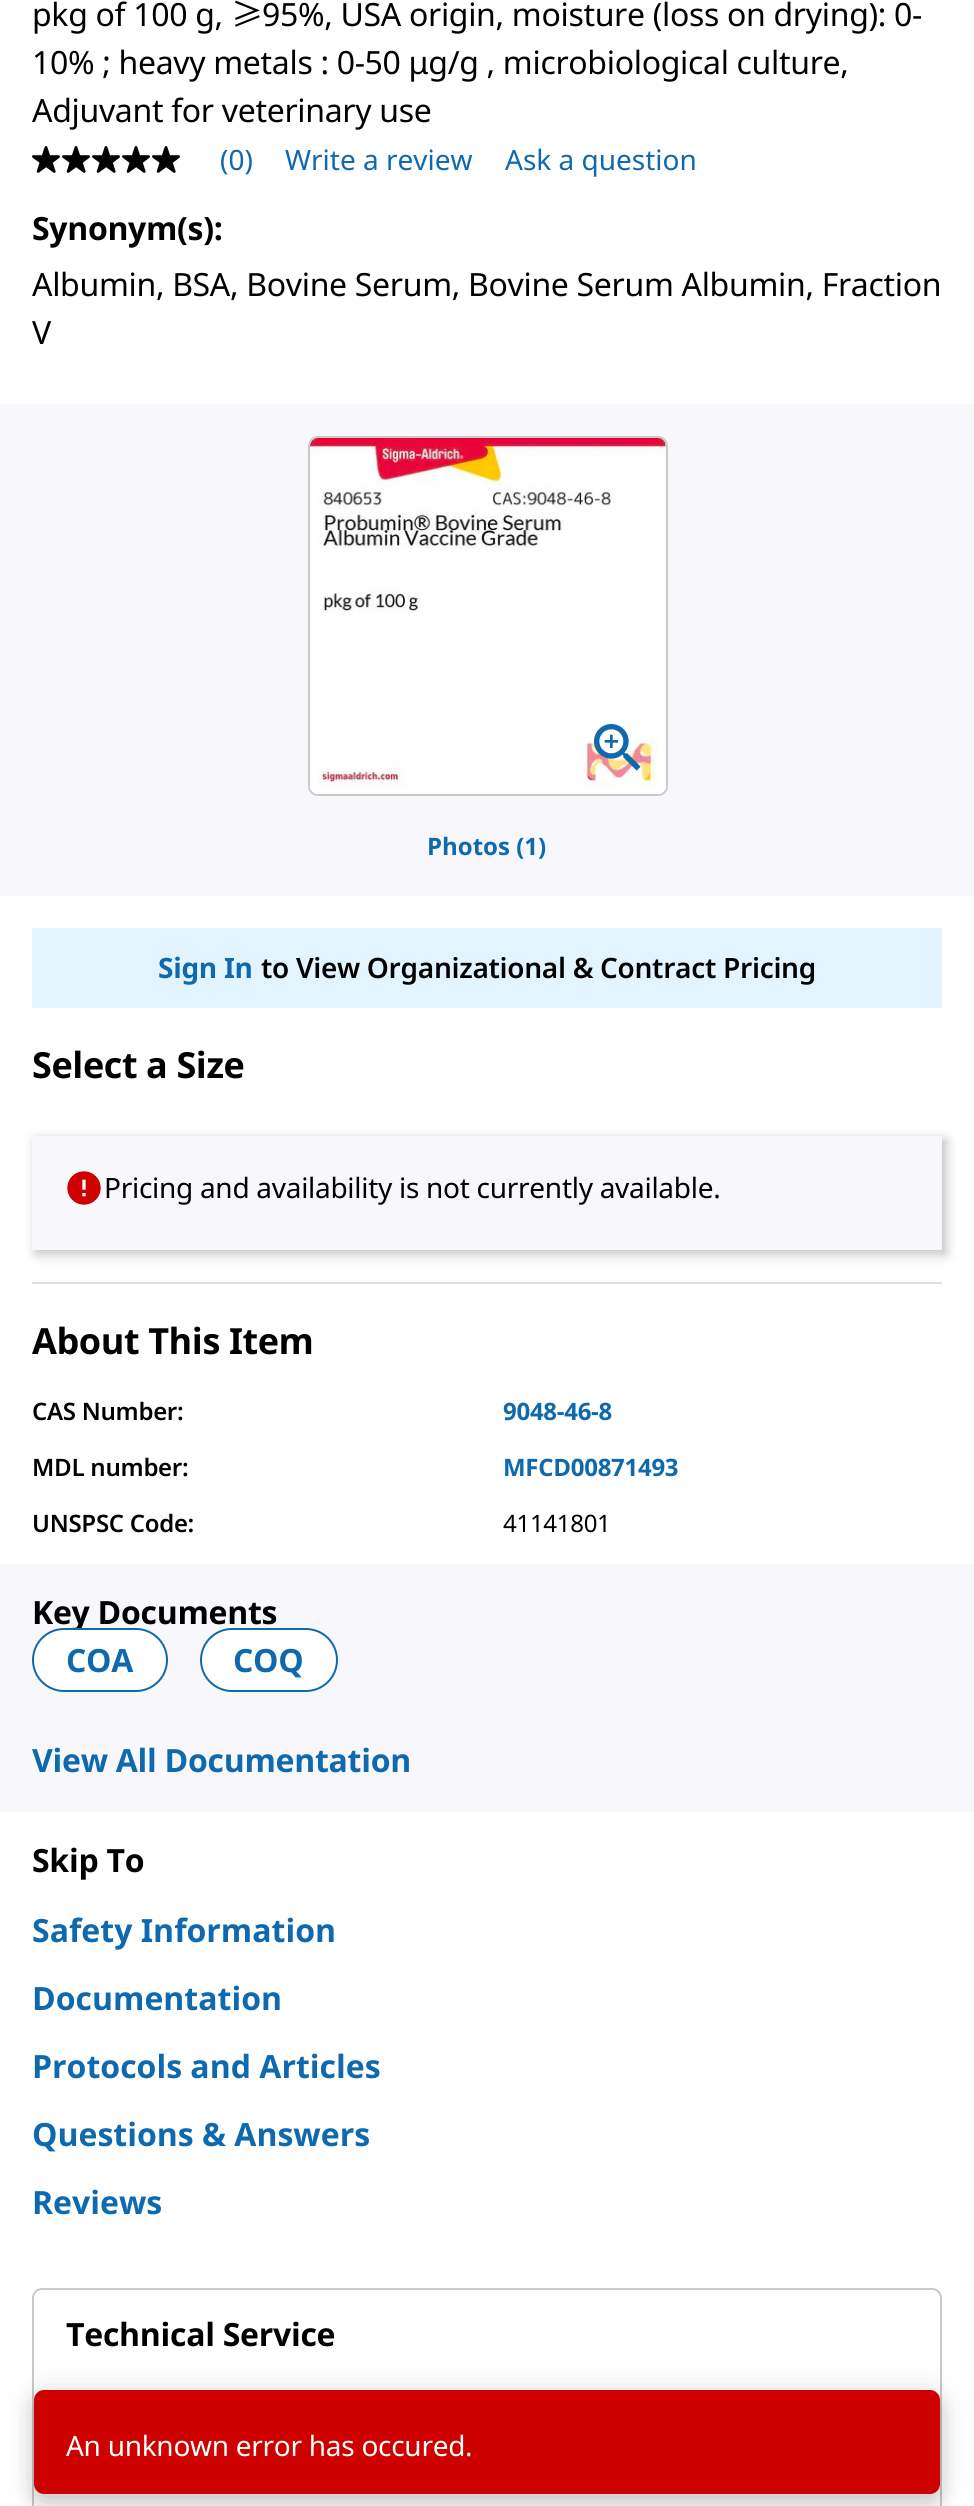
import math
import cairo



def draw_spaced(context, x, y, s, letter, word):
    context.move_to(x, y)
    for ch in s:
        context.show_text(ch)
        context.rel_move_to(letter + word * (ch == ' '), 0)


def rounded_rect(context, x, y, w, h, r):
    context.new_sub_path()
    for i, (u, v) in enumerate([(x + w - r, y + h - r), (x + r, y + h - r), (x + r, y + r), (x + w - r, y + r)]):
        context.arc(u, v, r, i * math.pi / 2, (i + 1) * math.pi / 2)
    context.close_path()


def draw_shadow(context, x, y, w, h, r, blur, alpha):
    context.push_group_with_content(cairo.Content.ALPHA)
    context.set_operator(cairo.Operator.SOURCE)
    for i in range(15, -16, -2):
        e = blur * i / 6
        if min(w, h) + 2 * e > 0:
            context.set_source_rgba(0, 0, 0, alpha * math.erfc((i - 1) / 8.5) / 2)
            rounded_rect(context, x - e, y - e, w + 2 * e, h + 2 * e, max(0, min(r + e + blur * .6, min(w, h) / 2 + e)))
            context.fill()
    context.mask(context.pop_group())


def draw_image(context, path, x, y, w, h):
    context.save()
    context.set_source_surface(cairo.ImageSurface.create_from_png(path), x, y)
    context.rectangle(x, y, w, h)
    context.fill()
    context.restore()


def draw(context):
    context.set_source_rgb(1, 1, 1)
    context.paint()
    draw_image(context, "images/1.png", 32, 146, 28, 27)
    draw_image(context, "images/1.png", 62, 146, 28, 27)
    draw_image(context, "images/1.png", 92, 146, 28, 27)
    draw_image(context, "images/1.png", 122, 146, 28, 27)
    draw_image(context, "images/1.png", 152, 146, 28, 27)
    context.set_source_rgb(248 / 255, 248 / 255, 252 / 255)
    context.rectangle(0, 404, 974, 492)
    context.fill()
    context.set_source_rgb(1, 1, 1)
    rounded_rect(context, 309, 437, 358, 358, 9)
    context.fill_preserve()
    context.set_source_rgb(201 / 255, 201 / 255, 201 / 255)
    context.stroke()
    draw_image(context, "images/2.png", 310, 438, 356, 356)
    context.set_source_rgba(1, 1, 1, 0.5)
    rounded_rect(context, 586, 716, 64, 64, 10)
    context.fill()
    draw_image(context, "images/3.png", 594, 724, 47, 47)
    context.set_source_rgb(226 / 255, 244 / 255, 1)
    context.rectangle(32, 928, 910, 80)
    context.fill()
    context.set_source_rgb(0, 0, 0)
    draw_shadow(context, 36, 1140, 910, 114, 0, 6, 0.25)
    context.set_source_rgb(248 / 255, 248 / 255, 252 / 255)
    context.rectangle(32, 1136, 910, 114)
    context.fill()
    draw_image(context, "images/4.png", 67, 1171, 34, 34)
    context.set_source_rgb(224 / 255, 224 / 255, 224 / 255)
    context.rectangle(32, 1282, 910, 2)
    context.fill()
    context.set_source_rgb(248 / 255, 248 / 255, 252 / 255)
    context.rectangle(0, 1564, 974, 248)
    context.fill()
    rounded_rect(context, 33, 2289, 908, 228, 9)
    context.set_source_rgb(201 / 255, 201 / 255, 201 / 255)
    context.stroke()
    context.set_source_rgb(0, 0, 0)
    draw_shadow(context, 34, 2392, 906, 104, 10, 18, 0.12)
    draw_shadow(context, 34, 2402, 906, 104, 10, 10, 0.14)
    context.set_source_rgb(206 / 255, 0, 0)
    rounded_rect(context, 34, 2390, 906, 104, 10)
    context.fill()
    context.select_font_face("Noto Sans")
    context.set_font_size(32)
    context.set_source_rgb(0, 0, 0)
    draw_spaced(context, 32, 26, "pkg of 100 g,", -0.32, 0)
    context.select_font_face("Noto Sans SC")
    draw_spaced(context, 231, 26, "≥", -0.32, 0)
    context.select_font_face("Noto Sans")
    draw_spaced(context, 262, 26, "95%, USA origin, moisture (loss on drying): 0-", -0.32, 0)
    draw_spaced(context, 32, 74, "10% ; heavy metals : 0-50 μg/g , microbiological culture,", -0.32, 0)
    draw_spaced(context, 32, 122, "Adjuvant for veterinary use", -0.32, 0)
    context.set_font_size(28)
    context.set_source_rgb(15 / 255, 105 / 255, 175 / 255)
    context.move_to(220, 170)
    context.show_text("(0)")
    context.move_to(285, 170)
    context.show_text("Write a review")
    context.move_to(505, 170)
    context.show_text("Ask a question")
    context.select_font_face("Noto Sans", cairo.FontSlant.NORMAL, cairo.FontWeight.BOLD)
    context.set_font_size(32)
    context.set_source_rgb(0, 0, 0)
    draw_spaced(context, 32, 240, "Synonym(s):", -0.32, 0)
    context.select_font_face("Noto Sans")
    draw_spaced(context, 32, 296, "Albumin, BSA, Bovine Serum, Bovine Serum Albumin, Fraction", -0.32, 0)
    draw_spaced(context, 32, 344, "V", -0.32, 0)
    context.select_font_face("Noto Sans", cairo.FontSlant.NORMAL, cairo.FontWeight.BOLD)
    context.set_font_size(24)
    context.set_source_rgb(15 / 255, 105 / 255, 175 / 255)
    context.move_to(427, 855)
    context.show_text("Photos (1)")
    context.set_font_size(28)
    draw_spaced(context, 158, 978, "Sign In", -0.28, 0)
    context.select_font_face("Noto Sans SemiBold")
    context.set_source_rgb(0, 0, 0)
    draw_spaced(context, 261, 978, "to View Organizational & Contract Pricing", -0.32, 0)
    context.select_font_face("Noto Sans", cairo.FontSlant.NORMAL, cairo.FontWeight.BOLD)
    context.set_font_size(36)
    draw_spaced(context, 32, 1078, "Select a Size", -0.4, 0)
    context.select_font_face("Noto Sans")
    context.set_font_size(28)
    draw_spaced(context, 104, 1198, "Pricing and availability is not currently available.", -0.28, 0)
    context.select_font_face("Noto Sans", cairo.FontSlant.NORMAL, cairo.FontWeight.BOLD)
    context.set_font_size(36)
    draw_spaced(context, 32, 1354, "About This Item", -0.4, 0)
    context.select_font_face("Noto Sans SemiBold")
    context.set_font_size(24)
    draw_spaced(context, 32, 1420, "CAS Number:", -0.28, 0)
    context.select_font_face("Noto Sans", cairo.FontSlant.NORMAL, cairo.FontWeight.BOLD)
    context.set_source_rgb(15 / 255, 105 / 255, 175 / 255)
    draw_spaced(context, 503, 1420, "9048-46-8", -0.28, 0)
    context.select_font_face("Noto Sans SemiBold")
    context.set_source_rgb(0, 0, 0)
    draw_spaced(context, 32, 1476, "MDL number:", -0.28, 0)
    context.select_font_face("Noto Sans", cairo.FontSlant.NORMAL, cairo.FontWeight.BOLD)
    context.set_source_rgb(15 / 255, 105 / 255, 175 / 255)
    draw_spaced(context, 503, 1476, "MFCD00871493", -0.28, 0)
    context.select_font_face("Noto Sans SemiBold")
    context.set_source_rgb(0, 0, 0)
    draw_spaced(context, 32, 1532, "UNSPSC Code:", -0.28, 0)
    context.select_font_face("Noto Sans")
    draw_spaced(context, 503, 1532, "41141801", -0.28, 0)
    context.select_font_face("Noto Sans", cairo.FontSlant.NORMAL, cairo.FontWeight.BOLD)
    context.set_font_size(32)
    draw_spaced(context, 32, 1624, "Key Documents", -0.28, 0)
    context.set_source_rgb(1, 1, 1)
    rounded_rect(context, 33, 1629, 134, 62, 31)
    context.fill_preserve()
    context.set_source_rgb(15 / 255, 105 / 255, 175 / 255)
    context.stroke()
    draw_spaced(context, 66, 1672, "COA", -0.28, 0)
    context.set_source_rgb(1, 1, 1)
    rounded_rect(context, 201, 1629, 136, 62, 31)
    context.fill_preserve()
    context.set_source_rgb(15 / 255, 105 / 255, 175 / 255)
    context.stroke()
    draw_spaced(context, 233, 1672, "COQ", -0.28, 0)
    draw_spaced(context, 32, 1772, "View All Documentation", -0.28, 0)
    context.set_source_rgb(0, 0, 0)
    draw_spaced(context, 32, 1872, "Skip To", -0.28, 0)
    context.set_source_rgb(15 / 255, 105 / 255, 175 / 255)
    context.move_to(32, 1942)
    context.show_text("Safety Information")
    context.move_to(32, 2010)
    context.show_text("Documentation")
    context.move_to(32, 2078)
    context.show_text("Protocols and Articles")
    context.move_to(32, 2146)
    context.show_text("Questions & Answers")
    context.move_to(32, 2214)
    context.show_text("Reviews")
    context.set_source_rgb(0, 0, 0)
    draw_spaced(context, 66, 2346, "Technical Service", -0.28, 0)
    context.select_font_face("Noto Sans")
    context.set_font_size(28)
    context.set_source_rgb(1, 1, 1)
    draw_spaced(context, 66, 2456, "An unknown error has occured.", -0.28, 0)


surface = cairo.ImageSurface(cairo.Format.RGB24, 974, 2506)
context = cairo.Context(surface)
options = cairo.FontOptions()
options.set_hint_metrics(cairo.HintMetrics.OFF)
options.set_hint_style(cairo.HintStyle.NONE)
context.set_font_options(options)
context.set_miter_limit(4)
draw(context)
surface.write_to_png("out.png")
